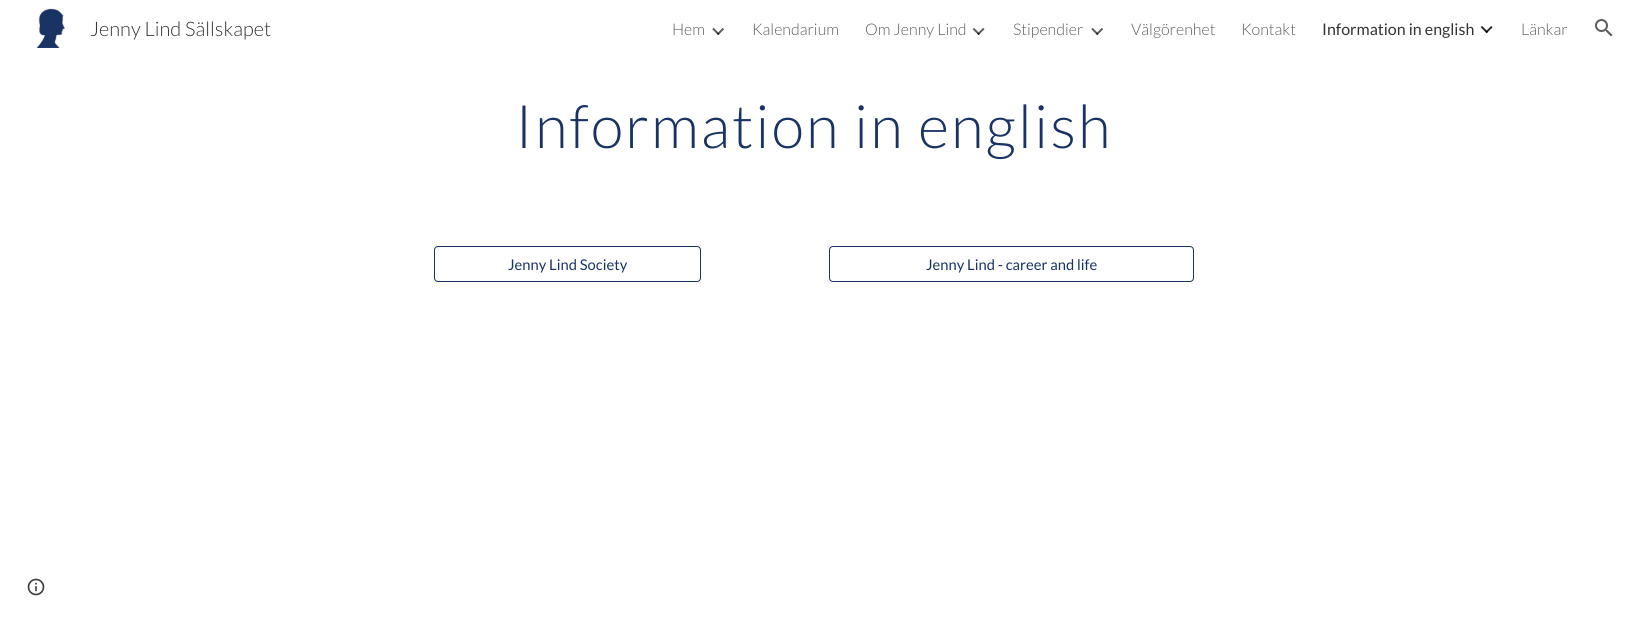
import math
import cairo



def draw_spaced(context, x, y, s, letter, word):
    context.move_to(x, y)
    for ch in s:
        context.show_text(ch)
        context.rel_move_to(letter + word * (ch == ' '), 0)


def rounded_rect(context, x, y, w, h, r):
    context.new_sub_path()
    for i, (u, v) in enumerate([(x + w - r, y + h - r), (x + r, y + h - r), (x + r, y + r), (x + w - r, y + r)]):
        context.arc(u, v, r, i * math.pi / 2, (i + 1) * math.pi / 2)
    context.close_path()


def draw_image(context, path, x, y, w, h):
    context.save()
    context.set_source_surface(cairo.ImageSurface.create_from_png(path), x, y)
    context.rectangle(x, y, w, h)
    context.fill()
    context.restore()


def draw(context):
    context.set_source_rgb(1, 1, 1)
    context.paint()
    draw_image(context, "images/1.png", 36, 8, 29, 40)
    draw_image(context, "images/2.png", 712, 27, 12, 9)
    draw_image(context, "images/3.png", 972, 27, 13, 9)
    draw_image(context, "images/4.png", 1091, 27, 13, 9)
    draw_image(context, "images/5.png", 1480, 26, 13, 8)
    draw_image(context, "images/6.png", 1595, 19, 18, 18)
    rounded_rect(context, 434.5, 246.5, 266, 35, 3.5)
    context.set_source_rgb(25 / 255, 51 / 255, 100 / 255)
    context.set_line_width(1)
    context.stroke()
    rounded_rect(context, 829.5, 246.5, 364, 35, 3.5)
    context.stroke()
    draw_image(context, "images/7.png", 27, 578, 18, 18)
    context.select_font_face("Lato Light")
    context.set_font_size(20)
    context.set_source_rgb(51 / 255, 51 / 255, 51 / 255)
    context.move_to(90, 36)
    context.show_text("Jenny Lind Sällskapet")
    context.set_font_size(16)
    context.set_source_rgb(92 / 255, 92 / 255, 92 / 255)
    context.move_to(672, 35)
    context.show_text("Hem")
    context.move_to(752, 35)
    context.show_text("Kalendarium")
    context.move_to(865, 35)
    context.show_text("Om Jenny Lind")
    context.move_to(1013, 35)
    context.show_text("Stipendier")
    context.move_to(1131, 35)
    context.show_text("Välgörenhet")
    context.move_to(1241, 35)
    context.show_text("Kontakt")
    context.select_font_face("Lato")
    context.set_source_rgb(51 / 255, 51 / 255, 51 / 255)
    context.move_to(1322, 35)
    context.show_text("Information in english")
    context.select_font_face("Lato Light")
    context.set_source_rgb(92 / 255, 92 / 255, 92 / 255)
    context.move_to(1521, 35)
    context.show_text("Länkar")
    context.set_font_size(60)
    context.set_source_rgb(25 / 255, 51 / 255, 100 / 255)
    draw_spaced(context, 515, 148, "Information in english", 2, 0)
    context.select_font_face("Lato")
    context.set_font_size(14.75)
    context.move_to(508, 270)
    context.show_text("Jenny Lind Society")
    context.move_to(926, 270)
    context.show_text("Jenny Lind - career and life")


surface = cairo.ImageSurface(cairo.Format.RGB24, 1628, 621)
context = cairo.Context(surface)
options = cairo.FontOptions()
options.set_hint_metrics(cairo.HintMetrics.OFF)
options.set_hint_style(cairo.HintStyle.NONE)
context.set_font_options(options)
context.set_miter_limit(4)
draw(context)
surface.write_to_png("out.png")
